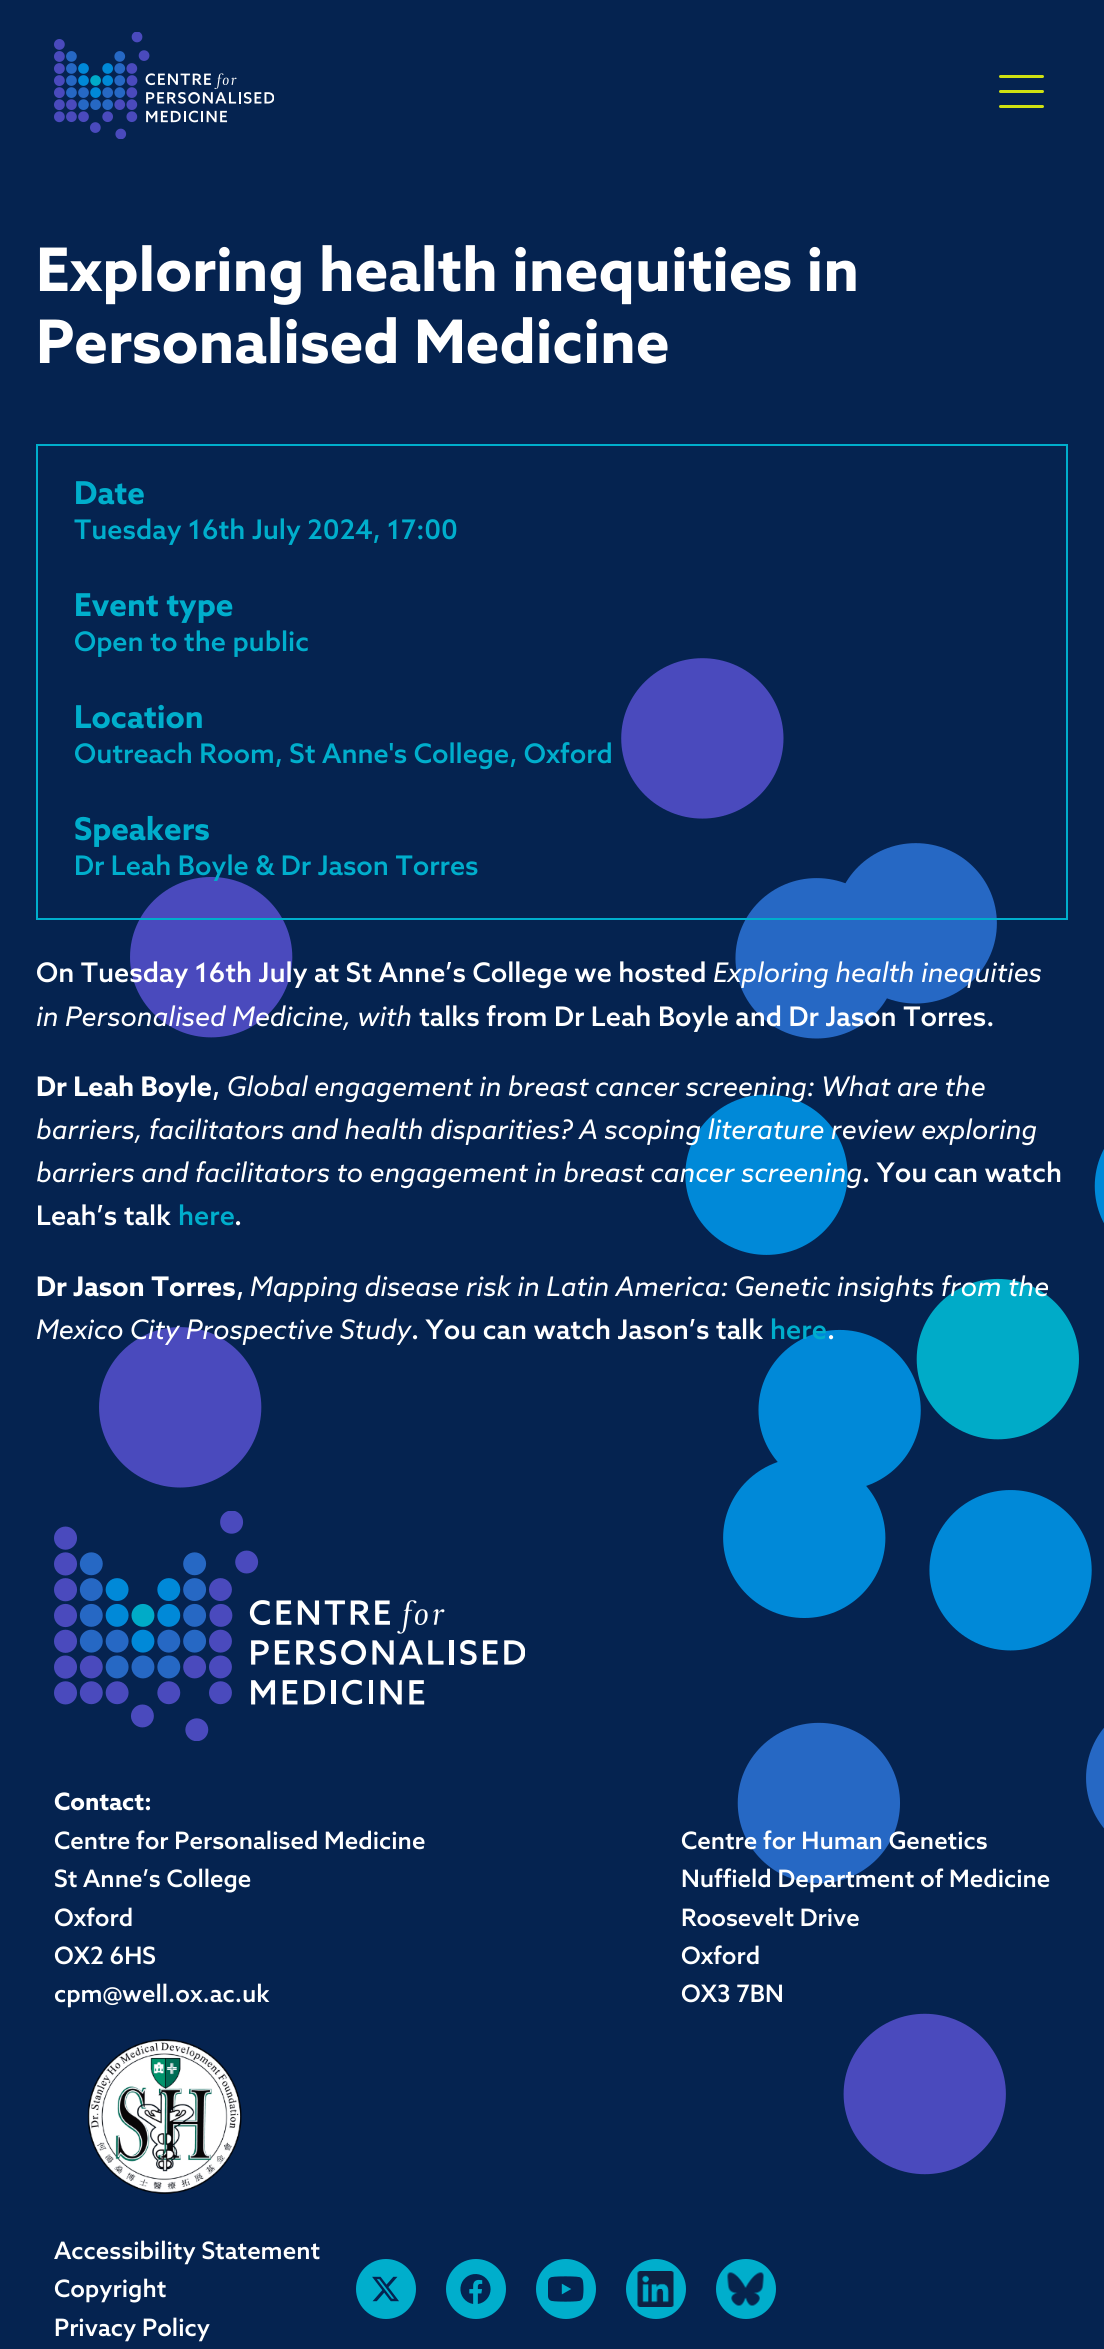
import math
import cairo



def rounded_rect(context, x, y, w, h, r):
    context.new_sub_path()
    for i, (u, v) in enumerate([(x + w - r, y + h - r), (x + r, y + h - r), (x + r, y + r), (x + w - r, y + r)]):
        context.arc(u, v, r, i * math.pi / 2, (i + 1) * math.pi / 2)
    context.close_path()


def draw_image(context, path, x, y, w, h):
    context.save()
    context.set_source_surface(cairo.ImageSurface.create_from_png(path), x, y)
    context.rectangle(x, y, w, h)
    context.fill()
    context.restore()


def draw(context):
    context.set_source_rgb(5 / 255, 35 / 255, 80 / 255)
    context.paint()
    draw_image(context, "images/1.png", 54, 32, 220, 107)
    context.set_source_rgb(208 / 255, 225 / 255, 17 / 255)
    rounded_rect(context, 999, 90, 45, 3, 1.5)
    context.fill()
    rounded_rect(context, 999, 75, 45, 3, 1.5)
    context.fill()
    rounded_rect(context, 999, 105, 45, 3, 1.5)
    context.fill()
    draw_image(context, "images/2.png", 99, 658, 1005, 1517)
    context.rectangle(37, 445, 1030, 474)
    context.set_source_rgb(0, 174 / 255, 204 / 255)
    context.stroke()
    draw_image(context, "images/3.png", 54, 1511, 471, 230)
    draw_image(context, "images/4.png", 87, 2039, 155, 155)
    context.arc(386, 2289, 30, 0, 2 * math.pi)
    context.fill()
    draw_image(context, "images/5.png", 372, 2276, 27, 26)
    context.arc(476, 2289, 30, 0, 2 * math.pi)
    context.fill()
    draw_image(context, "images/6.png", 460, 2274, 31, 30)
    context.arc(566, 2289, 30, 0, 2 * math.pi)
    context.fill()
    draw_image(context, "images/7.png", 548, 2276, 36, 26)
    context.arc(656, 2289, 30, 0, 2 * math.pi)
    context.fill()
    draw_image(context, "images/8.png", 637, 2271, 37, 36)
    context.arc(746, 2289, 30, 0, 2 * math.pi)
    context.fill()
    draw_image(context, "images/9.png", 727, 2272, 37, 34)
    context.select_font_face("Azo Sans", cairo.FontSlant.NORMAL, cairo.FontWeight.BOLD)
    context.set_font_size(60)
    context.set_source_rgb(1, 1, 1)
    context.move_to(36, 291)
    context.show_text("Exploring health inequities in")
    context.move_to(36, 363)
    context.show_text("Personalised Medicine")
    context.set_font_size(31.5)
    context.set_source_rgb(0, 174 / 255, 204 / 255)
    context.move_to(74, 504)
    context.show_text("Date")
    context.select_font_face("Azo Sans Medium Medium")
    context.set_font_size(27)
    context.move_to(74, 539)
    context.show_text("Tuesday 16th July 2024, 17:00")
    context.select_font_face("Azo Sans", cairo.FontSlant.NORMAL, cairo.FontWeight.BOLD)
    context.set_font_size(31.5)
    context.move_to(74, 616)
    context.show_text("Event type")
    context.select_font_face("Azo Sans Medium Medium")
    context.set_font_size(27)
    context.move_to(74, 651)
    context.show_text("Open to the public")
    context.select_font_face("Azo Sans", cairo.FontSlant.NORMAL, cairo.FontWeight.BOLD)
    context.set_font_size(31.5)
    context.move_to(74, 728)
    context.show_text("Location")
    context.select_font_face("Azo Sans Medium Medium")
    context.set_font_size(27)
    context.move_to(74, 763)
    context.show_text("Outreach Room, St Anne's College, Oxford")
    context.select_font_face("Azo Sans", cairo.FontSlant.NORMAL, cairo.FontWeight.BOLD)
    context.set_font_size(31.5)
    context.move_to(74, 840)
    context.show_text("Speakers")
    context.select_font_face("Azo Sans Medium Medium")
    context.set_font_size(27)
    context.move_to(74, 875)
    context.show_text("Dr Leah Boyle & Dr Jason Torres")
    context.set_source_rgb(1, 1, 1)
    context.move_to(36, 982)
    context.show_text("On Tuesday 16th July at St Anne’s College we hosted")
    context.select_font_face("Azo Sans", cairo.FontSlant.ITALIC)
    context.move_to(713, 982)
    context.show_text("Exploring health inequities")
    context.move_to(36, 1026)
    context.show_text("in Personalised Medicine, with")
    context.select_font_face("Azo Sans Medium Medium")
    context.move_to(419, 1026)
    context.show_text("talks from Dr Leah Boyle and Dr Jason Torres.")
    context.select_font_face("Azo Sans", cairo.FontSlant.NORMAL, cairo.FontWeight.BOLD)
    context.move_to(36, 1096)
    context.show_text("Dr Leah Boyle")
    context.select_font_face("Azo Sans Medium Medium")
    context.move_to(212, 1096)
    context.show_text(",")
    context.select_font_face("Azo Sans", cairo.FontSlant.ITALIC)
    context.move_to(227, 1096)
    context.show_text("Global engagement in breast cancer screening: What are the")
    context.move_to(36, 1139)
    context.show_text("barriers, facilitators and health disparities? A scoping literature review exploring")
    context.move_to(36, 1182)
    context.show_text("barriers and facilitators to engagement in breast cancer screening")
    context.select_font_face("Azo Sans Medium Medium")
    context.move_to(862, 1182)
    context.show_text(". You can watch")
    context.move_to(36, 1225)
    context.show_text("Leah’s talk")
    context.set_source_rgb(0, 174 / 255, 204 / 255)
    context.move_to(178, 1225)
    context.show_text("here")
    context.set_source_rgb(1, 1, 1)
    context.move_to(234, 1225)
    context.show_text(".")
    context.select_font_face("Azo Sans", cairo.FontSlant.NORMAL, cairo.FontWeight.BOLD)
    context.move_to(36, 1296)
    context.show_text("Dr Jason Torres")
    context.select_font_face("Azo Sans Medium Medium")
    context.move_to(236, 1296)
    context.show_text(",")
    context.select_font_face("Azo Sans", cairo.FontSlant.ITALIC)
    context.move_to(250, 1296)
    context.show_text("Mapping disease risk in Latin America: Genetic insights from the")
    context.move_to(36, 1339)
    context.show_text("Mexico City Prospective Study")
    context.select_font_face("Azo Sans Medium Medium")
    context.move_to(411, 1339)
    context.show_text(". You can watch Jason’s talk")
    context.set_source_rgb(0, 174 / 255, 204 / 255)
    context.move_to(770, 1339)
    context.show_text("here")
    context.set_source_rgb(1, 1, 1)
    context.move_to(827, 1339)
    context.show_text(".")
    context.select_font_face("Azo Sans", cairo.FontSlant.NORMAL, cairo.FontWeight.BOLD)
    context.set_font_size(24)
    context.move_to(54, 1810)
    context.show_text("Contact:")
    context.select_font_face("Azo Sans Medium Medium")
    context.move_to(54, 1849)
    context.show_text("Centre for Personalised Medicine")
    context.move_to(54, 1887)
    context.show_text("St Anne’s College")
    context.move_to(54, 1926)
    context.show_text("Oxford")
    context.move_to(54, 1964)
    context.show_text("OX2 6HS")
    context.move_to(54, 2002)
    context.show_text("cpm@well.ox.ac.uk")
    context.move_to(681, 1849)
    context.show_text("Centre for Human Genetics")
    context.move_to(681, 1887)
    context.show_text("Nuffield Department of Medicine")
    context.move_to(681, 1926)
    context.show_text("Roosevelt Drive")
    context.move_to(681, 1964)
    context.show_text("Oxford")
    context.move_to(681, 2002)
    context.show_text("OX3 7BN")
    context.move_to(54, 2259)
    context.show_text("Accessibility Statement")
    context.move_to(54, 2297)
    context.show_text("Copyright")
    context.move_to(54, 2336)
    context.show_text("Privacy Policy")


surface = cairo.ImageSurface(cairo.Format.RGB24, 1104, 2349)
context = cairo.Context(surface)
options = cairo.FontOptions()
options.set_hint_metrics(cairo.HintMetrics.OFF)
options.set_hint_style(cairo.HintStyle.NONE)
context.set_font_options(options)
context.set_miter_limit(4)
draw(context)
surface.write_to_png("out.png")
